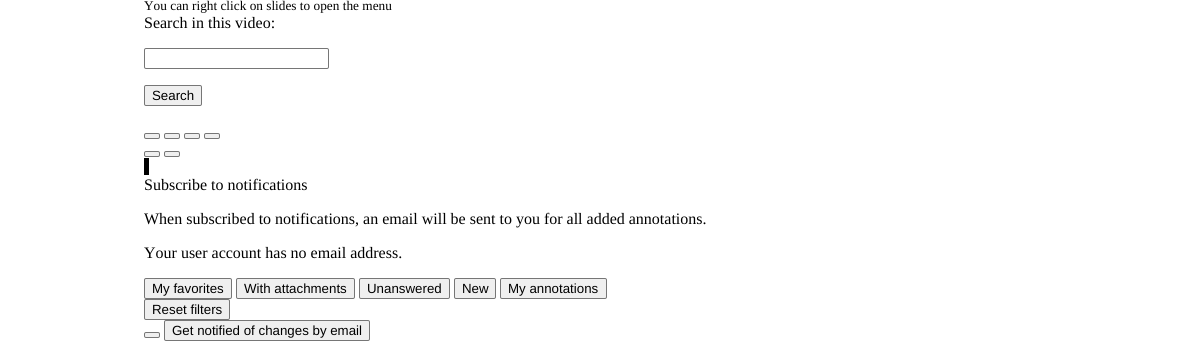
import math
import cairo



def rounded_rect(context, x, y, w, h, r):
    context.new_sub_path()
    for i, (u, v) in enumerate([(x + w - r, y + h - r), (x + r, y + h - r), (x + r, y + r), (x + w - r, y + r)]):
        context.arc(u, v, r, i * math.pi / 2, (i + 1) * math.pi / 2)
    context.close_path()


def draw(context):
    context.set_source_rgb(1, 1, 1)
    context.paint()
    rounded_rect(context, 144.5, 48.5, 184, 20, 1.5)
    context.set_source_rgb(118 / 255, 118 / 255, 118 / 255)
    context.set_line_width(1)
    context.stroke()
    context.set_source_rgb(239 / 255, 239 / 255, 239 / 255)
    rounded_rect(context, 144.5, 85.5, 57, 20, 1.5)
    context.fill_preserve()
    context.set_source_rgb(118 / 255, 118 / 255, 118 / 255)
    context.stroke()
    context.set_source_rgb(239 / 255, 239 / 255, 239 / 255)
    rounded_rect(context, 144.5, 133.5, 15, 5, 1.5)
    context.fill_preserve()
    context.set_source_rgb(118 / 255, 118 / 255, 118 / 255)
    context.stroke()
    context.set_source_rgb(239 / 255, 239 / 255, 239 / 255)
    rounded_rect(context, 164.5, 133.5, 15, 5, 1.5)
    context.fill_preserve()
    context.set_source_rgb(118 / 255, 118 / 255, 118 / 255)
    context.stroke()
    context.set_source_rgb(239 / 255, 239 / 255, 239 / 255)
    rounded_rect(context, 184.5, 133.5, 15, 5, 1.5)
    context.fill_preserve()
    context.set_source_rgb(118 / 255, 118 / 255, 118 / 255)
    context.stroke()
    context.set_source_rgb(239 / 255, 239 / 255, 239 / 255)
    rounded_rect(context, 204.5, 133.5, 15, 5, 1.5)
    context.fill_preserve()
    context.set_source_rgb(118 / 255, 118 / 255, 118 / 255)
    context.stroke()
    context.set_source_rgb(239 / 255, 239 / 255, 239 / 255)
    rounded_rect(context, 144.5, 151.5, 15, 5, 1.5)
    context.fill_preserve()
    context.set_source_rgb(118 / 255, 118 / 255, 118 / 255)
    context.stroke()
    context.set_source_rgb(239 / 255, 239 / 255, 239 / 255)
    rounded_rect(context, 164.5, 151.5, 15, 5, 1.5)
    context.fill_preserve()
    context.set_source_rgb(118 / 255, 118 / 255, 118 / 255)
    context.stroke()
    context.set_source_rgb(0, 0, 0)
    context.rectangle(144, 158, 5, 17)
    context.fill()
    context.set_source_rgb(239 / 255, 239 / 255, 239 / 255)
    rounded_rect(context, 144.5, 278.5, 87, 20, 1.5)
    context.fill_preserve()
    context.set_source_rgb(118 / 255, 118 / 255, 118 / 255)
    context.stroke()
    context.set_source_rgb(239 / 255, 239 / 255, 239 / 255)
    rounded_rect(context, 236.5, 278.5, 118, 20, 1.5)
    context.fill_preserve()
    context.set_source_rgb(118 / 255, 118 / 255, 118 / 255)
    context.stroke()
    context.set_source_rgb(239 / 255, 239 / 255, 239 / 255)
    rounded_rect(context, 359.5, 278.5, 90, 20, 1.5)
    context.fill_preserve()
    context.set_source_rgb(118 / 255, 118 / 255, 118 / 255)
    context.stroke()
    context.set_source_rgb(239 / 255, 239 / 255, 239 / 255)
    rounded_rect(context, 454.5, 278.5, 41, 20, 1.5)
    context.fill_preserve()
    context.set_source_rgb(118 / 255, 118 / 255, 118 / 255)
    context.stroke()
    context.set_source_rgb(239 / 255, 239 / 255, 239 / 255)
    rounded_rect(context, 500.5, 278.5, 106, 20, 1.5)
    context.fill_preserve()
    context.set_source_rgb(118 / 255, 118 / 255, 118 / 255)
    context.stroke()
    context.set_source_rgb(239 / 255, 239 / 255, 239 / 255)
    rounded_rect(context, 144.5, 299.5, 85, 20, 1.5)
    context.fill_preserve()
    context.set_source_rgb(118 / 255, 118 / 255, 118 / 255)
    context.stroke()
    context.set_source_rgb(239 / 255, 239 / 255, 239 / 255)
    rounded_rect(context, 144.5, 332.5, 15, 5, 1.5)
    context.fill_preserve()
    context.set_source_rgb(118 / 255, 118 / 255, 118 / 255)
    context.stroke()
    context.set_source_rgb(239 / 255, 239 / 255, 239 / 255)
    rounded_rect(context, 164.5, 320.5, 205, 20, 1.5)
    context.fill_preserve()
    context.set_source_rgb(118 / 255, 118 / 255, 118 / 255)
    context.stroke()
    context.select_font_face("Liberation Serif")
    context.set_font_size(13.3)
    context.set_source_rgb(0, 0, 0)
    context.move_to(144, 10)
    context.show_text("You can right click on slides to open the menu")
    context.set_font_size(16)
    context.move_to(144, 28)
    context.show_text("Search in this video:")
    context.select_font_face("Liberation Sans")
    context.set_font_size(13.3)
    context.move_to(152, 100)
    context.show_text("Search")
    context.select_font_face("Liberation Serif")
    context.set_font_size(16)
    context.move_to(144, 190)
    context.show_text("Subscribe to notifications")
    context.move_to(144, 224)
    context.show_text("When subscribed to notifications, an email will be sent to you for all added annotations.")
    context.move_to(144, 258)
    context.show_text("Your user account has no email address.")
    context.select_font_face("Liberation Sans")
    context.set_font_size(13.3)
    context.move_to(152, 293)
    context.show_text("My favorites")
    context.move_to(244, 293)
    context.show_text("With attachments")
    context.move_to(367, 293)
    context.show_text("Unanswered")
    context.move_to(462, 293)
    context.show_text("New")
    context.move_to(508, 293)
    context.show_text("My annotations")
    context.move_to(152, 314)
    context.show_text("Reset filters")
    context.move_to(172, 335)
    context.show_text("Get notified of changes by email")


surface = cairo.ImageSurface(cairo.Format.RGB24, 1190, 349)
context = cairo.Context(surface)
options = cairo.FontOptions()
options.set_hint_metrics(cairo.HintMetrics.OFF)
options.set_hint_style(cairo.HintStyle.NONE)
context.set_font_options(options)
context.set_miter_limit(4)
draw(context)
surface.write_to_png("out.png")
